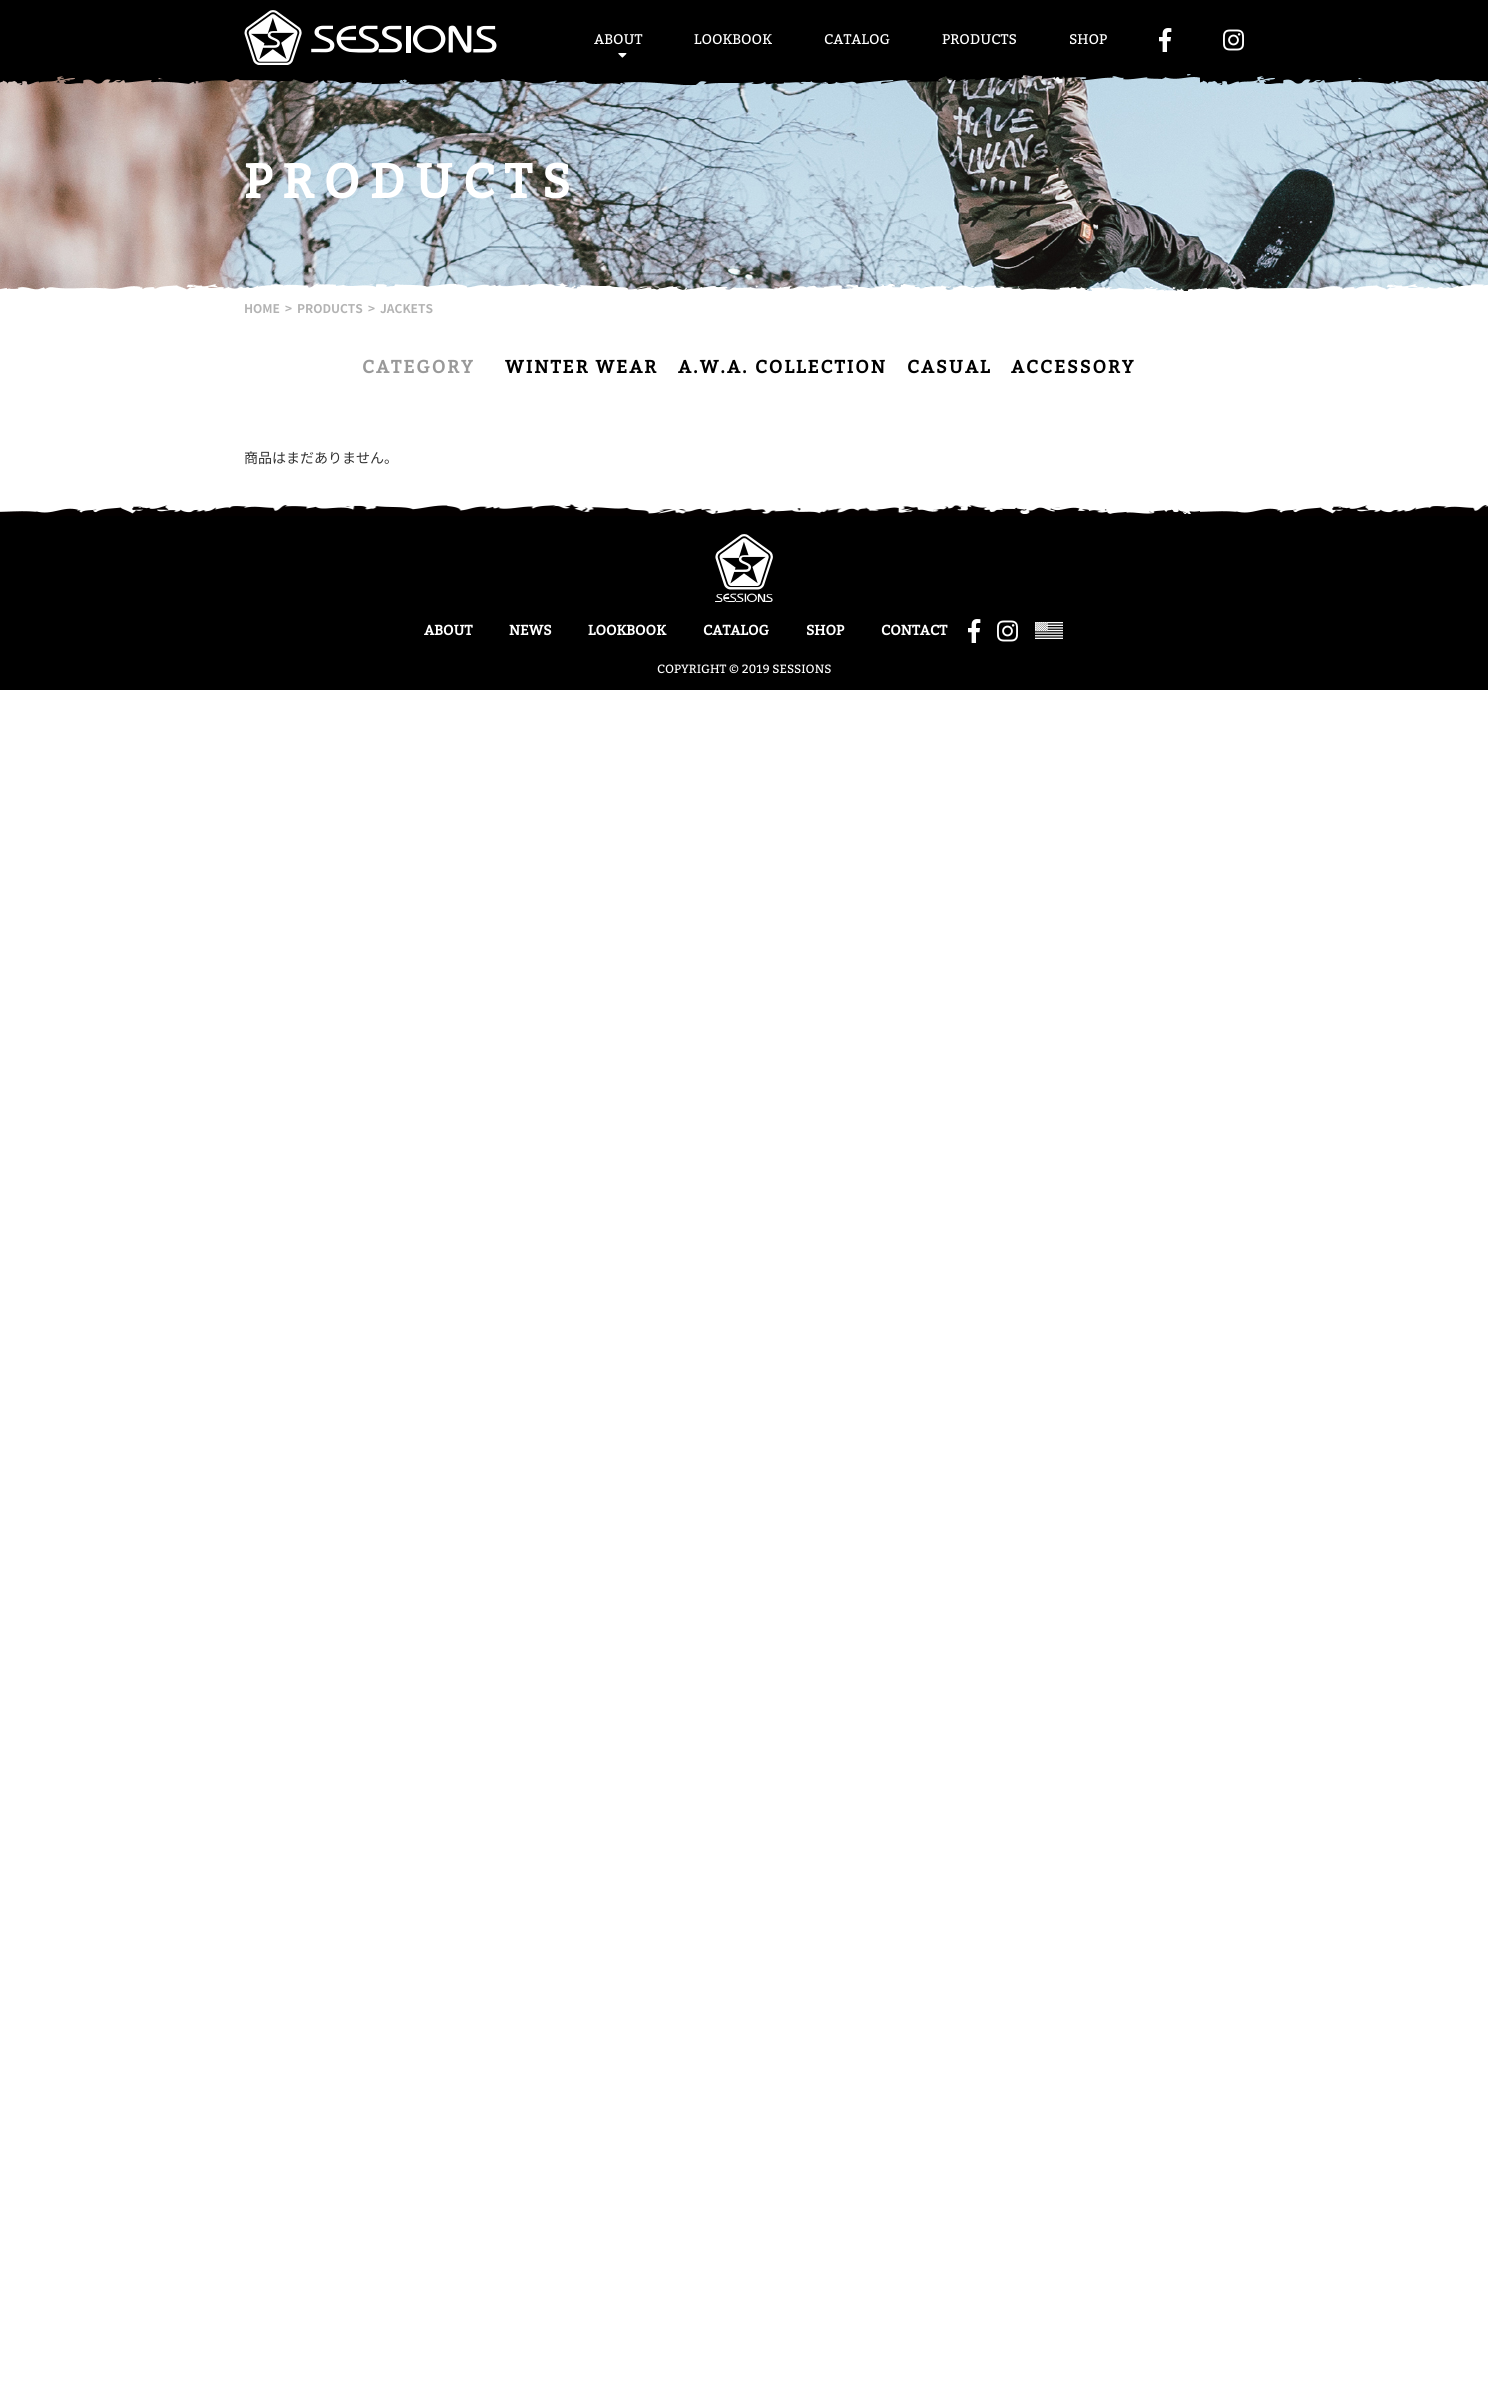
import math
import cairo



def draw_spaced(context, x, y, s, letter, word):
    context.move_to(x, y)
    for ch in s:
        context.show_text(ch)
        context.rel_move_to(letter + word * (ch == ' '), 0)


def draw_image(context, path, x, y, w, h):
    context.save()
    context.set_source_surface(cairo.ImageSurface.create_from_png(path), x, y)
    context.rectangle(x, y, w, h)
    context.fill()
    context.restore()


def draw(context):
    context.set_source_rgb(1, 1, 1)
    context.paint()
    draw_image(context, "images/6.png", 0, 74, 1488, 217)
    draw_image(context, "images/1.png", 0, 0, 1488, 85)
    draw_image(context, "images/2.png", 244, 10, 253, 55)
    draw_image(context, "images/3.png", 618, 53, 9, 5)
    draw_image(context, "images/4.png", 1159, 28, 13, 24)
    draw_image(context, "images/5.png", 1223, 29, 21, 22)
    draw_image(context, "images/7.png", 0, 283, 1488, 8)
    context.set_source_rgb(0, 0, 0)
    context.rectangle(0, 514, 1488, 176)
    context.fill()
    draw_image(context, "images/8.png", 0, 504, 1488, 12)
    draw_image(context, "images/9.png", 715, 534, 58, 68)
    draw_image(context, "images/4.png", 968, 619, 13, 24)
    draw_image(context, "images/5.png", 997, 620, 21, 22)
    draw_image(context, "images/10.png", 1035, 622, 28, 17)
    context.select_font_face("Kadwa")
    context.set_font_size(14)
    context.set_source_rgb(1, 1, 1)
    context.move_to(594, 44)
    context.show_text("ABOUT")
    context.move_to(694, 44)
    context.show_text("LOOKBOOK")
    context.move_to(824, 44)
    context.show_text("CATALOG")
    context.move_to(942, 44)
    context.show_text("PRODUCTS")
    context.move_to(1069, 44)
    context.show_text("SHOP")
    context.select_font_face("Kadwa", cairo.FontSlant.NORMAL, cairo.FontWeight.BOLD)
    context.set_font_size(48)
    draw_spaced(context, 244, 198, "PRODUCTS", 10, 0)
    context.select_font_face("Noto Sans JP", cairo.FontSlant.NORMAL, cairo.FontWeight.BOLD)
    context.set_font_size(12)
    context.set_source_rgb(179 / 255, 179 / 255, 179 / 255)
    context.move_to(244, 313)
    context.show_text("HOME")
    context.move_to(285, 313)
    context.show_text(">")
    context.move_to(297, 313)
    context.show_text("PRODUCTS")
    context.move_to(368, 313)
    context.show_text(">")
    context.move_to(380, 313)
    context.show_text("JACKETS")
    context.select_font_face("Kadwa", cairo.FontSlant.NORMAL, cairo.FontWeight.BOLD)
    context.set_font_size(18)
    context.set_source_rgb(153 / 255, 153 / 255, 153 / 255)
    draw_spaced(context, 362, 373, "CATEGORY", 2, 0)
    context.set_source_rgb(0, 0, 0)
    draw_spaced(context, 505, 373, "WINTER WEAR", 2, 0)
    draw_spaced(context, 678, 373, "A.W.A. COLLECTION", 2, 0)
    draw_spaced(context, 907, 373, "CASUAL", 2, 0)
    draw_spaced(context, 1011, 373, "ACCESSORY", 2, 0)
    context.select_font_face("Noto Sans JP")
    context.set_font_size(14)
    context.set_source_rgb(51 / 255, 51 / 255, 51 / 255)
    context.move_to(244, 463)
    context.show_text("商品はまだありません。")
    context.select_font_face("Kadwa", cairo.FontSlant.NORMAL, cairo.FontWeight.BOLD)
    context.set_source_rgb(1, 1, 1)
    context.move_to(424, 635)
    context.show_text("ABOUT")
    context.move_to(509, 635)
    context.show_text("NEWS")
    context.move_to(588, 635)
    context.show_text("LOOKBOOK")
    context.move_to(703, 635)
    context.show_text("CATALOG")
    context.move_to(806, 635)
    context.show_text("SHOP")
    context.move_to(881, 635)
    context.show_text("CONTACT")
    context.select_font_face("Kadwa")
    context.set_font_size(12)
    context.move_to(657, 673)
    context.show_text("COPYRIGHT © 2019 SESSIONS")


surface = cairo.ImageSurface(cairo.Format.RGB24, 1488, 2393)
context = cairo.Context(surface)
options = cairo.FontOptions()
options.set_hint_metrics(cairo.HintMetrics.OFF)
options.set_hint_style(cairo.HintStyle.NONE)
context.set_font_options(options)
context.set_miter_limit(4)
draw(context)
surface.write_to_png("out.png")
